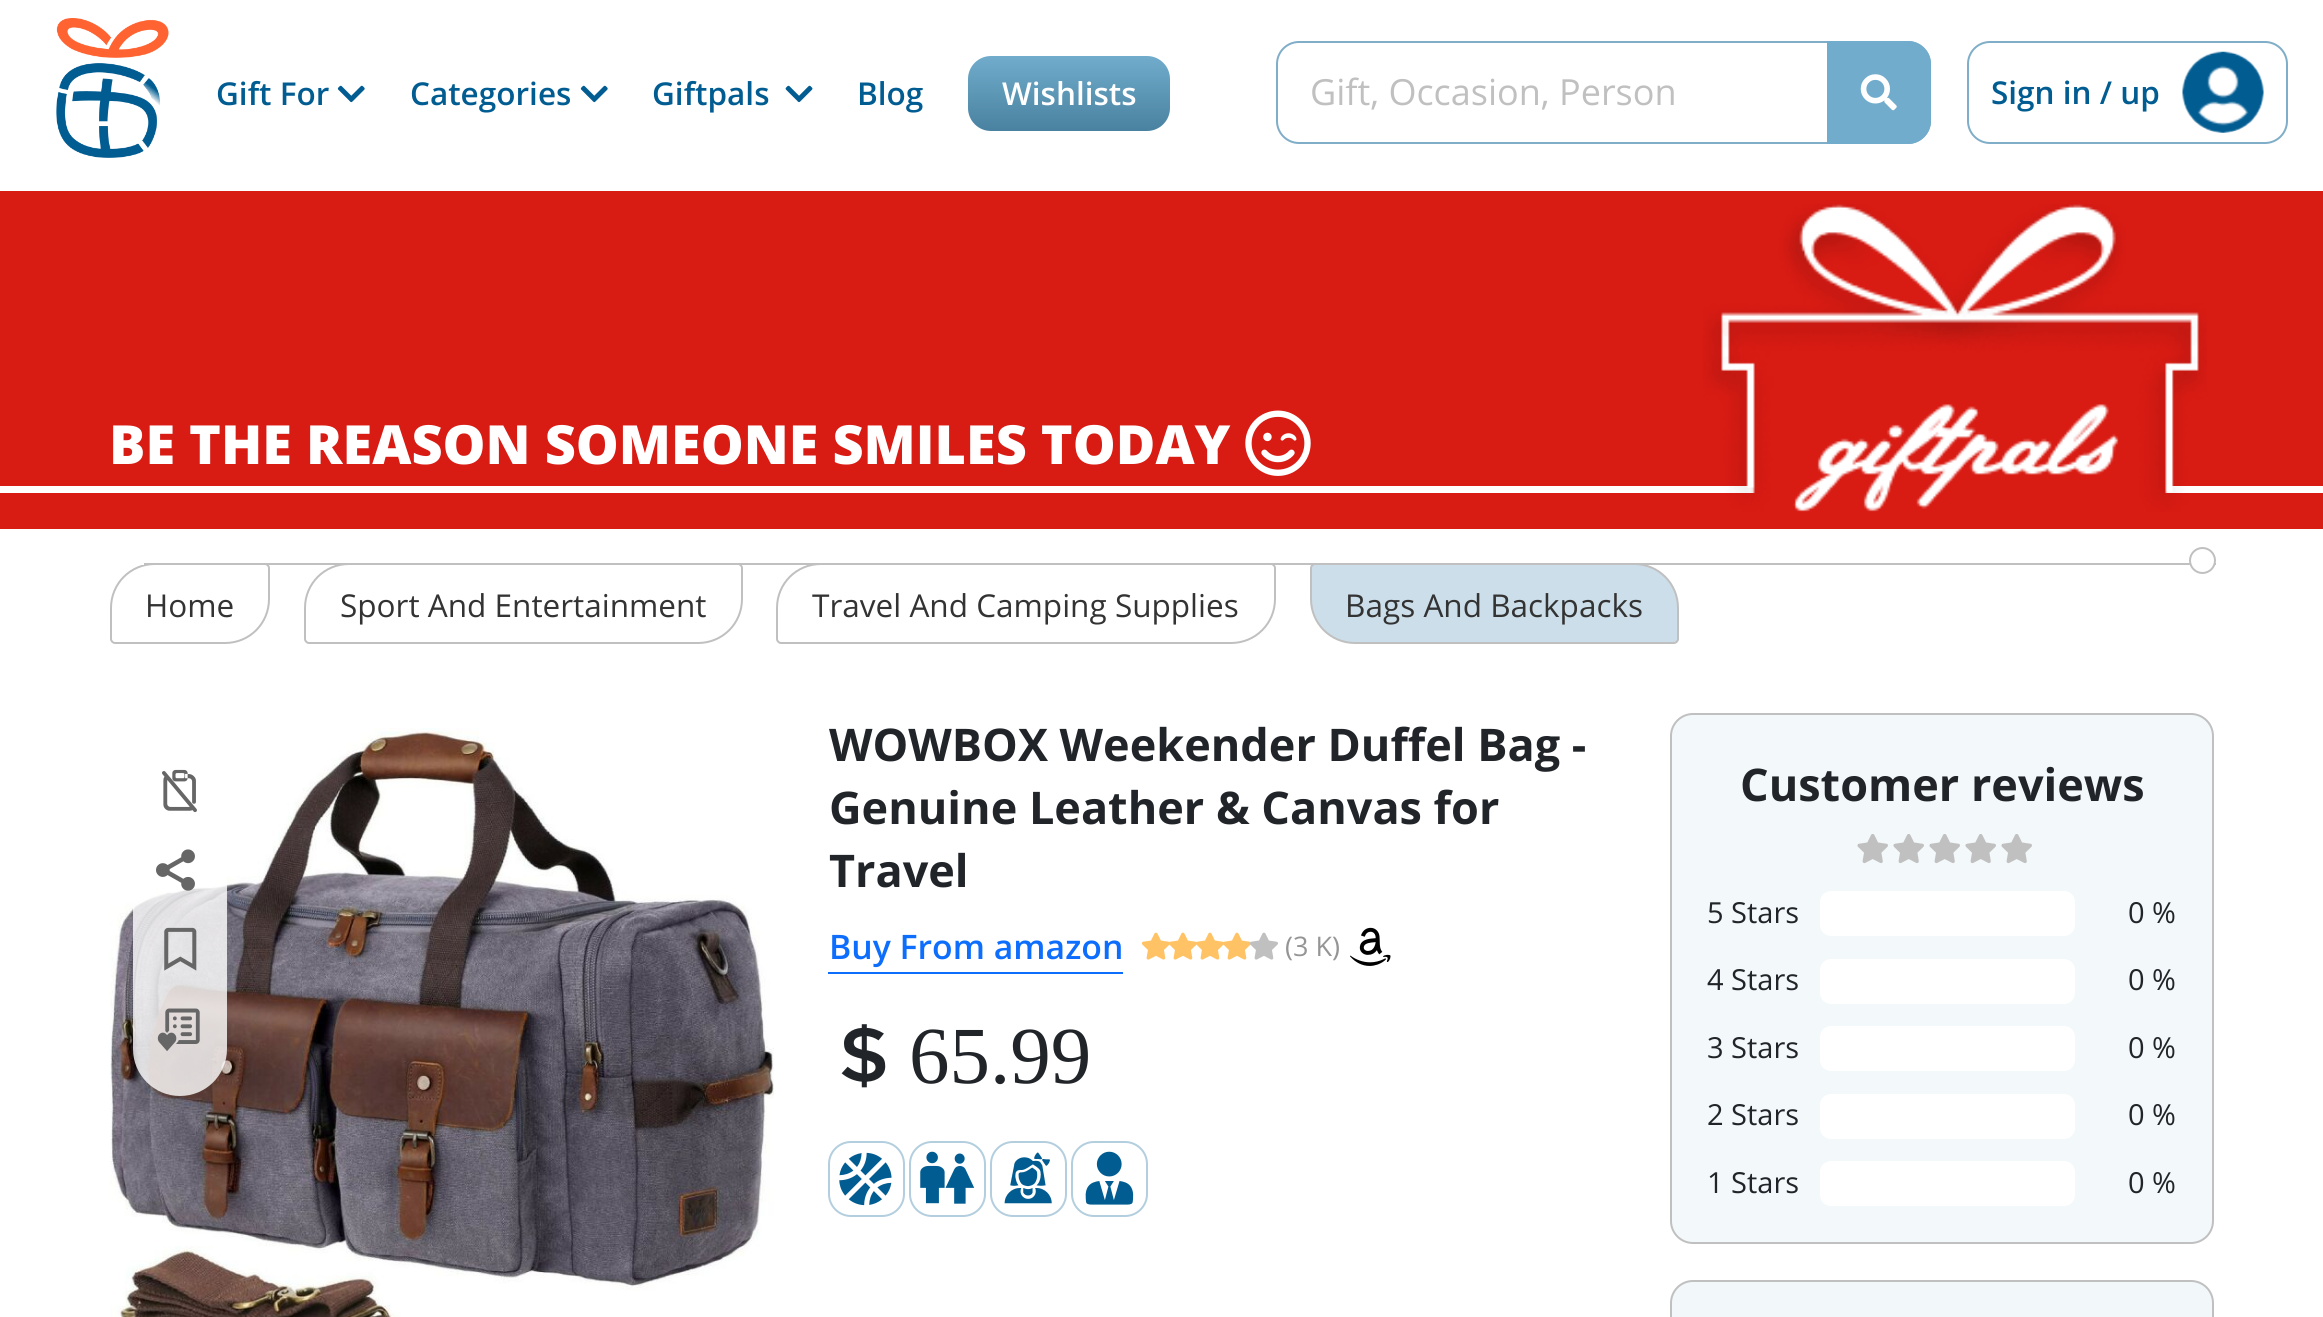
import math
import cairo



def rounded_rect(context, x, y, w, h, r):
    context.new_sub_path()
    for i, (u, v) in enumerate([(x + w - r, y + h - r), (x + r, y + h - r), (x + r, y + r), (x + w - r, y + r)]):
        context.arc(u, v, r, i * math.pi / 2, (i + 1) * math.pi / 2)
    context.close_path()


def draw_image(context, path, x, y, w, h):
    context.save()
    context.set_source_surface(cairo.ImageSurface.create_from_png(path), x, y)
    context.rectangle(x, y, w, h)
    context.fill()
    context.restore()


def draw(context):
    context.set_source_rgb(1, 1, 1)
    context.paint()
    draw_image(context, "images/1.png", 56, 18, 113, 140)
    draw_image(context, "images/2.png", 337, 85, 28, 18)
    draw_image(context, "images/2.png", 580, 85, 28, 18)
    draw_image(context, "images/3.png", 785, 85, 28, 18)
    gradient = cairo.LinearGradient(1069, 56, 1069, 131)
    gradient.add_color_stop_rgba(0, 113 / 255, 172 / 255, 204 / 255, 1)
    gradient.add_color_stop_rgba(1, 73 / 255, 130 / 255, 160 / 255, 1)
    context.set_source(gradient)
    rounded_rect(context, 968, 56, 202, 75, 23)
    context.fill()
    rounded_rect(context, 1277, 42, 653, 101, 22)
    context.set_source_rgb(128 / 255, 173 / 255, 200 / 255)
    context.stroke()
    context.set_source_rgb(113 / 255, 172 / 255, 204 / 255)
    context.new_path()
    context.move_to(1827, 41)
    context.line_to(1908, 41)
    context.curve_to(1920.5, 41, 1931, 51.5, 1931, 64)
    context.line_to(1931, 121)
    context.curve_to(1931, 133.5, 1920.5, 144, 1908, 144)
    context.line_to(1827, 144)
    context.close_path()
    context.fill()
    draw_image(context, "images/4.png", 1860, 74, 37, 37)
    rounded_rect(context, 1968, 42, 319, 101, 22)
    context.set_source_rgb(128 / 255, 173 / 255, 200 / 255)
    context.stroke()
    draw_image(context, "images/5.png", 2182, 51, 82, 82)
    context.set_source_rgb(216 / 255, 27 / 255, 19 / 255)
    context.rectangle(0, 191, 2323, 338)
    context.fill()
    context.set_source_rgb(1, 1, 1)
    context.rectangle(0, 486, 2323, 7)
    context.fill()
    draw_image(context, "images/6.png", 1703, 204, 504, 308)
    draw_image(context, "images/7.png", 1245, 410, 66, 66)
    context.set_source_rgb(192 / 255, 192 / 255, 192 / 255)
    context.rectangle(144, 563, 2072, 2)
    context.fill()
    context.set_source_rgb(1, 1, 1)
    context.arc(2202.5, 560.5, 12.5, 0, 2 * math.pi)
    context.fill_preserve()
    context.set_source_rgb(192 / 255, 192 / 255, 192 / 255)
    context.stroke()
    context.new_path()
    context.move_to(155, 564)
    context.line_to(265, 564)
    context.curve_to(267, 564, 269, 566, 269, 568)
    context.line_to(269, 599)
    context.curve_to(269, 623.5, 249.5, 643, 225, 643)
    context.line_to(115, 643)
    context.curve_to(113, 643, 111, 641, 111, 639)
    context.line_to(111, 608)
    context.curve_to(111, 583.5, 130.5, 564, 155, 564)
    context.close_path()
    context.stroke()
    context.set_source_rgb(1, 1, 1)
    context.rectangle(142, 564, 2, 1)
    context.fill()
    context.new_path()
    context.move_to(349, 564)
    context.line_to(738, 564)
    context.curve_to(740, 564, 742, 566, 742, 568)
    context.line_to(742, 599)
    context.curve_to(742, 623.5, 722.5, 643, 698, 643)
    context.line_to(309, 643)
    context.curve_to(307, 643, 305, 641, 305, 639)
    context.line_to(305, 608)
    context.curve_to(305, 583.5, 324.5, 564, 349, 564)
    context.close_path()
    context.set_source_rgb(192 / 255, 192 / 255, 192 / 255)
    context.stroke()
    context.new_path()
    context.move_to(821, 564)
    context.line_to(1271, 564)
    context.curve_to(1273, 564, 1275, 566, 1275, 568)
    context.line_to(1275, 599)
    context.curve_to(1275, 623.5, 1255.5, 643, 1231, 643)
    context.line_to(781, 643)
    context.curve_to(779, 643, 777, 641, 777, 639)
    context.line_to(777, 608)
    context.curve_to(777, 583.5, 796.5, 564, 821, 564)
    context.close_path()
    context.stroke()
    context.set_source_rgba(1 / 255, 92 / 255, 145 / 255, 0.2)
    context.new_path()
    context.move_to(1315, 564)
    context.line_to(1634, 564)
    context.curve_to(1658.5, 564, 1678, 583.5, 1678, 608)
    context.line_to(1678, 639)
    context.curve_to(1678, 641, 1676, 643, 1674, 643)
    context.line_to(1355, 643)
    context.curve_to(1330.5, 643, 1311, 623.5, 1311, 599)
    context.line_to(1311, 568)
    context.curve_to(1311, 566, 1313, 564, 1315, 564)
    context.close_path()
    context.fill_preserve()
    context.set_source_rgb(192 / 255, 192 / 255, 192 / 255)
    context.stroke()
    draw_image(context, "images/8.png", 110, 728, 664, 589)
    context.set_source_rgba(1, 1, 1, 0.8)
    rounded_rect(context, 133, 736, 94, 360, 47)
    context.fill()
    draw_image(context, "images/9.png", 162, 769, 35, 44)
    draw_image(context, "images/10.png", 156, 849, 39, 42)
    draw_image(context, "images/11.png", 164, 927, 33, 44)
    draw_image(context, "images/12.png", 157, 1008, 43, 43)
    context.set_source_rgb(13 / 255, 110 / 255, 253 / 255)
    context.rectangle(828, 972, 295, 2)
    context.fill()
    draw_image(context, "images/13.png", 1141, 932, 29, 28)
    draw_image(context, "images/14.png", 1169, 932, 28, 28)
    draw_image(context, "images/14.png", 1196, 932, 28, 28)
    draw_image(context, "images/14.png", 1223, 932, 28, 28)
    draw_image(context, "images/15.png", 1249, 932, 29, 28)
    draw_image(context, "images/16.png", 1350, 927, 41, 39)
    draw_image(context, "images/17.png", 841, 1024, 45, 64)
    rounded_rect(context, 829, 1142, 75, 74, 22)
    context.set_source_rgb(179 / 255, 206 / 255, 222 / 255)
    context.stroke()
    draw_image(context, "images/18.png", 839, 1152, 53, 54)
    rounded_rect(context, 910, 1142, 75, 74, 22)
    context.stroke()
    draw_image(context, "images/19.png", 920, 1151, 55, 53)
    rounded_rect(context, 991, 1142, 75, 74, 22)
    context.stroke()
    draw_image(context, "images/20.png", 1004, 1152, 48, 52)
    rounded_rect(context, 1072, 1142, 75, 74, 22)
    context.stroke()
    draw_image(context, "images/21.png", 1085, 1151, 49, 54)
    context.set_source_rgb(243 / 255, 248 / 255, 250 / 255)
    rounded_rect(context, 1671, 714, 542, 529, 22)
    context.fill_preserve()
    context.set_source_rgb(192 / 255, 192 / 255, 192 / 255)
    context.stroke()
    draw_image(context, "images/22.png", 1857, 834, 31, 30)
    draw_image(context, "images/22.png", 1893, 834, 31, 30)
    draw_image(context, "images/22.png", 1929, 834, 31, 30)
    draw_image(context, "images/22.png", 1965, 834, 31, 30)
    draw_image(context, "images/22.png", 2001, 834, 31, 30)
    context.set_source_rgb(1, 1, 1)
    rounded_rect(context, 1820, 891, 255, 45, 11)
    context.fill()
    rounded_rect(context, 1820, 959, 255, 45, 11)
    context.fill()
    rounded_rect(context, 1820, 1026, 255, 45, 11)
    context.fill()
    rounded_rect(context, 1820, 1094, 255, 45, 11)
    context.fill()
    rounded_rect(context, 1820, 1161, 255, 45, 11)
    context.fill()
    context.set_source_rgb(242 / 255, 247 / 255, 250 / 255)
    rounded_rect(context, 1671, 1281, 542, 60, 22)
    context.fill_preserve()
    context.set_source_rgb(192 / 255, 192 / 255, 192 / 255)
    context.stroke()
    context.select_font_face("Open Sans SemiBold")
    context.set_font_size(31.5)
    context.set_source_rgb(1 / 255, 92 / 255, 145 / 255)
    context.move_to(216, 105)
    context.show_text("Gift For")
    context.move_to(410, 105)
    context.show_text("Categories")
    context.move_to(652, 105)
    context.show_text("Giftpals")
    context.move_to(857, 105)
    context.show_text("Blog")
    context.set_source_rgb(1, 1, 1)
    context.move_to(1002, 105)
    context.show_text("Wishlists")
    context.select_font_face("Open Sans")
    context.set_font_size(36)
    context.set_source_rgb(192 / 255, 192 / 255, 192 / 255)
    context.move_to(1310, 105)
    context.show_text("Gift, Occasion, Person")
    context.select_font_face("Open Sans SemiBold")
    context.set_font_size(31.5)
    context.set_source_rgb(1 / 255, 92 / 255, 145 / 255)
    context.move_to(1991, 104)
    context.show_text("Sign in / up")
    context.select_font_face("Open Sans ExtraBold")
    context.set_font_size(54)
    context.set_source_rgb(1, 1, 1)
    context.move_to(109, 464)
    context.show_text("BE THE REASON SOMEONE SMILES TODAY")
    context.select_font_face("Open Sans")
    context.set_font_size(31.5)
    context.set_source_rgb(51 / 255, 51 / 255, 51 / 255)
    context.move_to(145, 617)
    context.show_text("Home")
    context.move_to(340, 617)
    context.show_text("Sport And Entertainment")
    context.move_to(812, 617)
    context.show_text("Travel And Camping Supplies")
    context.move_to(1345, 617)
    context.show_text("Bags And Backpacks")
    context.select_font_face("Open Sans", cairo.FontSlant.NORMAL, cairo.FontWeight.BOLD)
    context.set_font_size(45)
    context.set_source_rgb(33 / 255, 37 / 255, 41 / 255)
    context.move_to(829, 761)
    context.show_text("WOWBOX Weekender Duffel Bag -")
    context.move_to(829, 824)
    context.show_text("Genuine Leather & Canvas for")
    context.move_to(829, 887)
    context.show_text("Travel")
    context.select_font_face("Open Sans SemiBold")
    context.set_font_size(33.75)
    context.set_source_rgb(13 / 255, 110 / 255, 253 / 255)
    context.move_to(829, 959)
    context.show_text("Buy From amazon")
    context.select_font_face("Open Sans")
    context.set_font_size(27)
    context.set_source_rgb(149 / 255, 149 / 255, 149 / 255)
    context.move_to(1285, 956)
    context.show_text("(3 K)")
    context.select_font_face("Liberation Serif")
    context.set_font_size(81)
    context.set_source_rgb(33 / 255, 37 / 255, 41 / 255)
    context.move_to(909, 1083)
    context.show_text("65.99")
    context.select_font_face("Open Sans", cairo.FontSlant.NORMAL, cairo.FontWeight.BOLD)
    context.set_font_size(45)
    context.move_to(1740, 801)
    context.show_text("Customer reviews")
    context.select_font_face("Open Sans")
    context.set_font_size(29)
    context.move_to(1707, 923)
    context.show_text("5 Stars")
    context.move_to(2128, 923)
    context.show_text("0 %")
    context.move_to(1707, 990)
    context.show_text("4 Stars")
    context.move_to(2128, 990)
    context.show_text("0 %")
    context.move_to(1707, 1058)
    context.show_text("3 Stars")
    context.move_to(2128, 1058)
    context.show_text("0 %")
    context.move_to(1707, 1125)
    context.show_text("2 Stars")
    context.move_to(2128, 1125)
    context.show_text("0 %")
    context.move_to(1707, 1193)
    context.show_text("1 Stars")
    context.move_to(2128, 1193)
    context.show_text("0 %")


surface = cairo.ImageSurface(cairo.Format.RGB24, 2323, 1317)
context = cairo.Context(surface)
options = cairo.FontOptions()
options.set_hint_metrics(cairo.HintMetrics.OFF)
options.set_hint_style(cairo.HintStyle.NONE)
context.set_font_options(options)
context.set_miter_limit(4)
draw(context)
surface.write_to_png("out.png")
